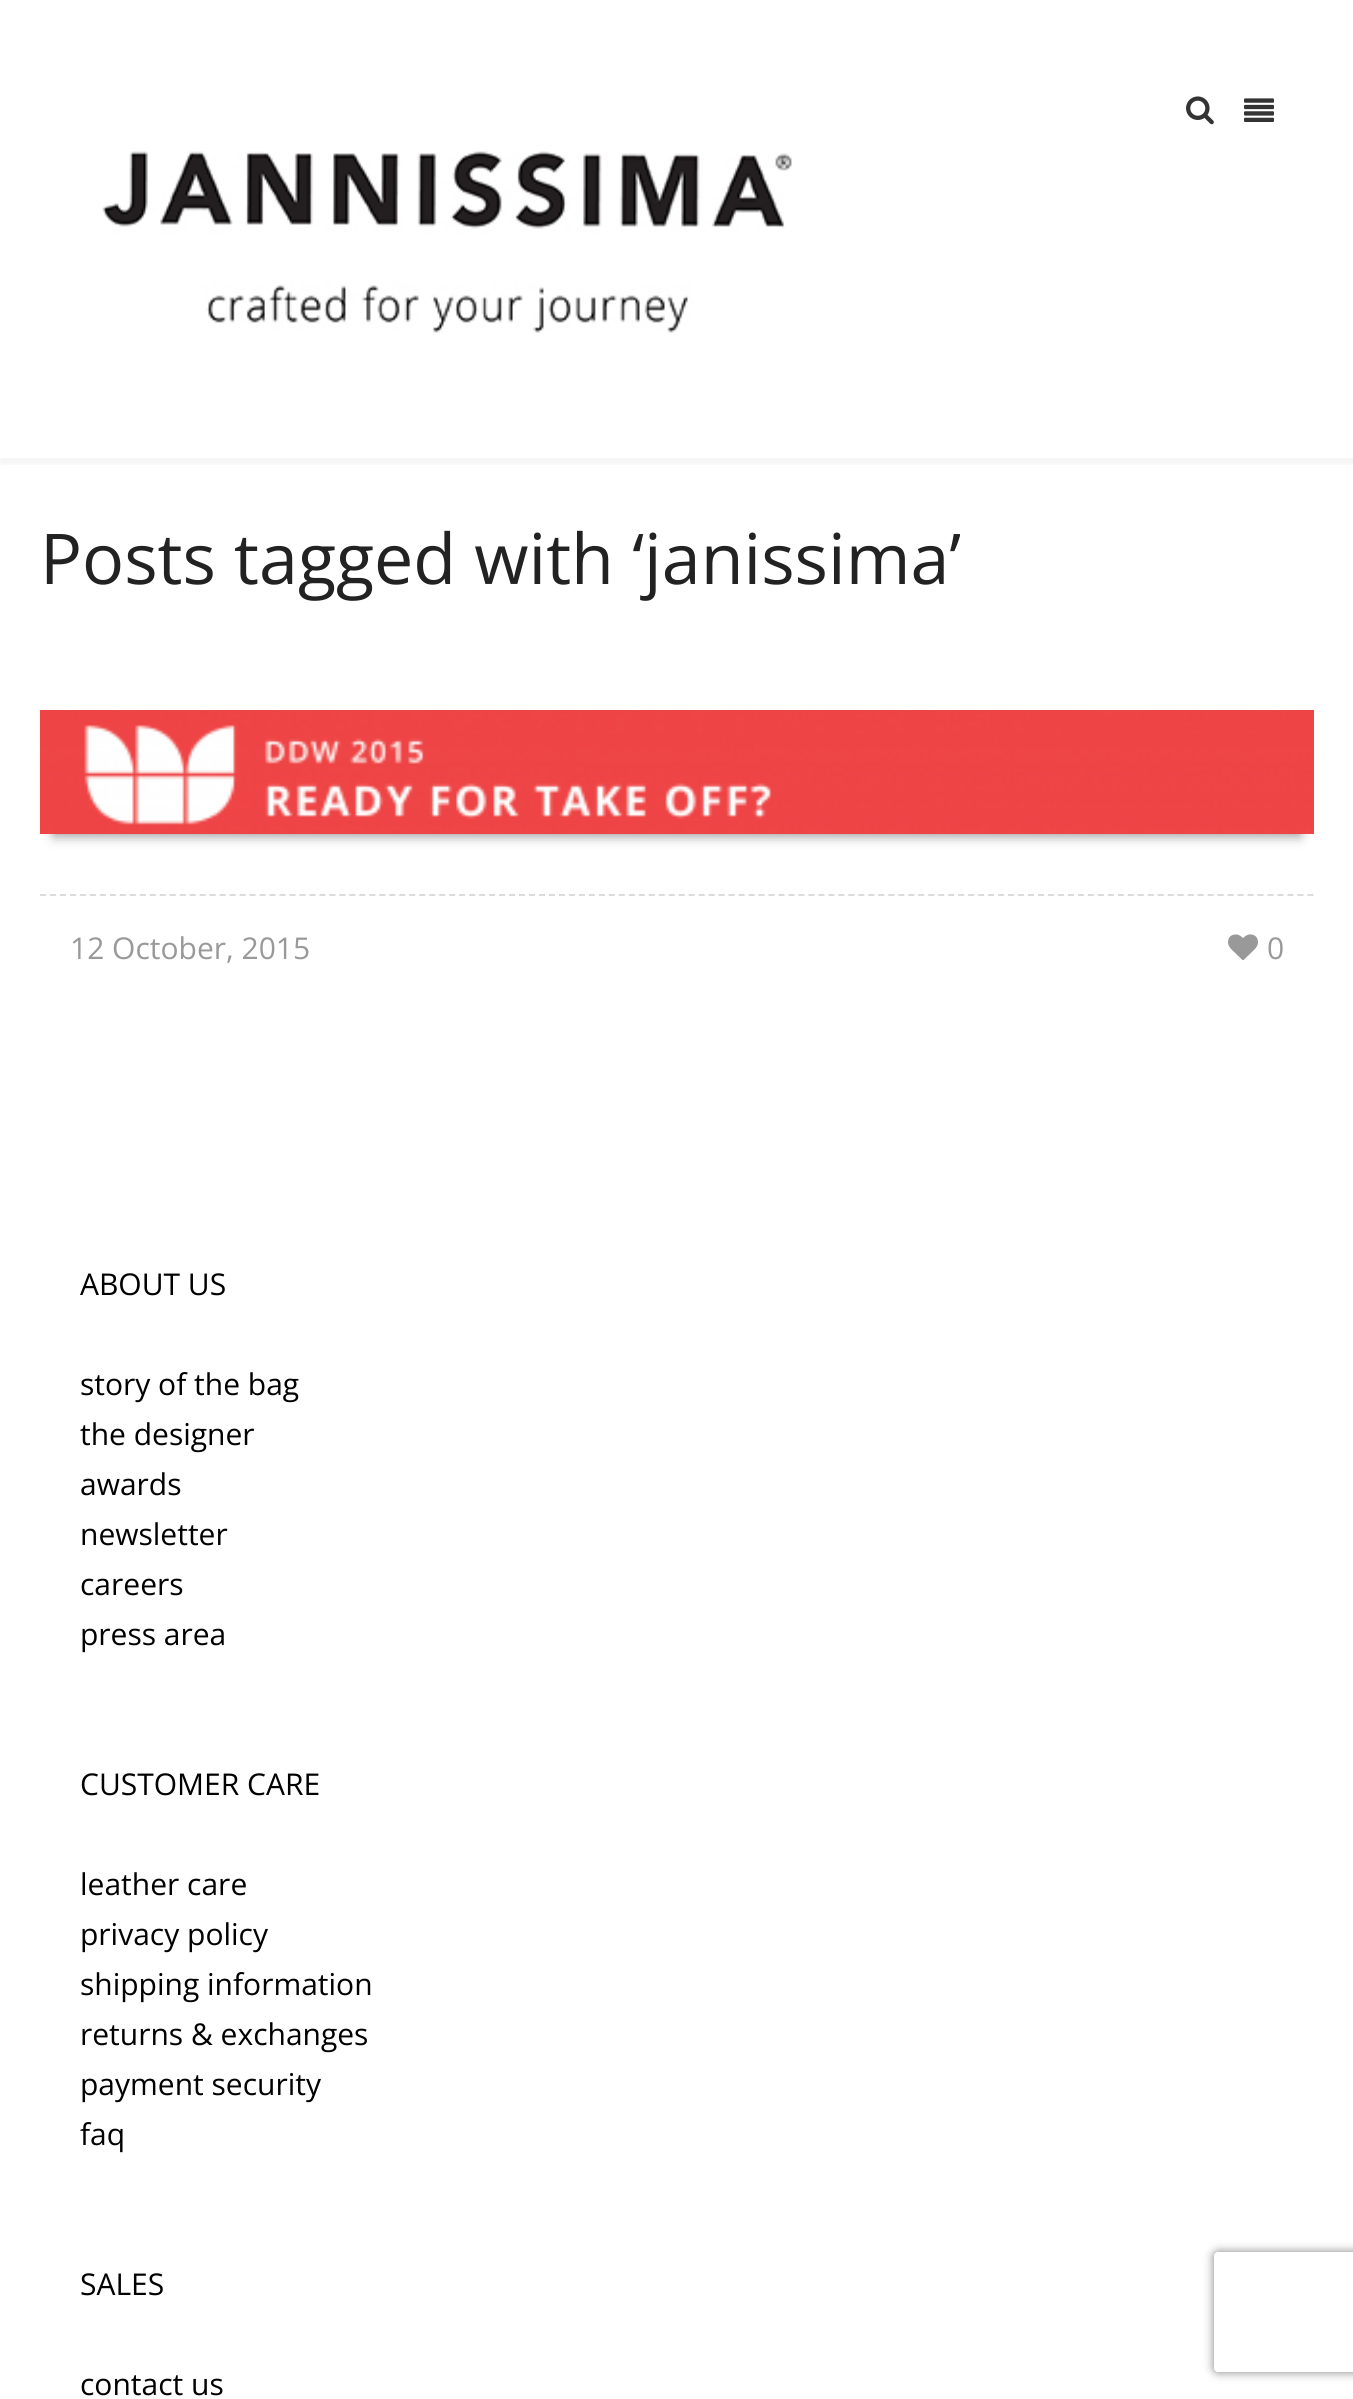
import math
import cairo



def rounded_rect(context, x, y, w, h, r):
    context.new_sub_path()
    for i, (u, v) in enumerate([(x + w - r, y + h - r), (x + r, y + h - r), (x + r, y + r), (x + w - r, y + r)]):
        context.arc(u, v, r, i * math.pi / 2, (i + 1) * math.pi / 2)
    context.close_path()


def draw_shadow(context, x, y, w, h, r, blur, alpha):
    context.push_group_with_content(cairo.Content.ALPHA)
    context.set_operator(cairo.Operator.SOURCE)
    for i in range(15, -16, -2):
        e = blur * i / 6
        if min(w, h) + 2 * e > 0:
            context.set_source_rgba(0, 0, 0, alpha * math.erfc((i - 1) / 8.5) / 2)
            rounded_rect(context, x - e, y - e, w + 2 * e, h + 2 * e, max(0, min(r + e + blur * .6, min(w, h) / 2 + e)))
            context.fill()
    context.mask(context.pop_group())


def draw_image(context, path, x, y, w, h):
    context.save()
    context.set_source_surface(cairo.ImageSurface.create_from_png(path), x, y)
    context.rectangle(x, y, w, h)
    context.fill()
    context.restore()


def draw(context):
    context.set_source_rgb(1, 1, 1)
    context.paint()
    context.save()
    context.rectangle(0, 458, 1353, 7)
    context.clip()
    context.set_source_rgb(0, 0, 0)
    draw_shadow(context, 0, 6, 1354, 458, 0, 5, 0.05)
    context.restore()
    draw_image(context, "images/1.png", 1186, 96, 28, 29)
    draw_image(context, "images/2.png", 1244, 98, 30, 24)
    draw_image(context, "images/3.png", 102, 151, 690, 182)
    context.set_source_rgb(153 / 255, 153 / 255, 153 / 255)
    draw_shadow(context, 54, 740, 1246, 96, 0, 6, 1)
    draw_image(context, "images/4.png", 40, 710, 1274, 124)
    context.new_path()
    context.move_to(40, 895)
    context.line_to(1314, 895)
    context.set_source_rgb(219 / 255, 219 / 255, 219 / 255)
    context.set_dash([6, 3.98])
    context.stroke()
    draw_image(context, "images/5.png", 1228, 934, 30, 27)
    context.save()
    context.set_fill_rule(cairo.FillRule.EVEN_ODD)
    context.new_path()
    context.move_to(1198, 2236)
    context.line_to(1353, 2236)
    context.line_to(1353, 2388)
    context.line_to(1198, 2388)
    context.close_path()
    context.move_to(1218, 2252)
    context.line_to(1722, 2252)
    context.curve_to(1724, 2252, 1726, 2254, 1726, 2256)
    context.line_to(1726, 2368)
    context.curve_to(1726, 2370, 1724, 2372, 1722, 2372)
    context.line_to(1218, 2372)
    context.curve_to(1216, 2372, 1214, 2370, 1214, 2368)
    context.line_to(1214, 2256)
    context.curve_to(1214, 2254, 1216, 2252, 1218, 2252)
    context.close_path()
    context.clip()
    context.set_source_rgb(128 / 255, 128 / 255, 128 / 255)
    draw_shadow(context, 1214, 2252, 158, 120, 4, 5, 1)
    context.restore()
    context.select_font_face("Open Sans")
    context.set_font_size(70)
    context.set_source_rgb(34 / 255, 34 / 255, 34 / 255)
    context.move_to(40, 584)
    context.show_text("Posts tagged with ‘janissima’")
    context.set_font_size(30)
    context.set_source_rgb(153 / 255, 153 / 255, 153 / 255)
    context.move_to(70, 959)
    context.show_text("12 October, 2015")
    context.move_to(1267, 959)
    context.show_text("0")
    context.set_source_rgb(0, 0, 0)
    context.move_to(80, 1295)
    context.show_text("ABOUT US")
    context.move_to(80, 1395)
    context.show_text("story of the bag")
    context.move_to(80, 1445)
    context.show_text("the designer")
    context.move_to(80, 1495)
    context.show_text("awards")
    context.move_to(80, 1545)
    context.show_text("newsletter")
    context.move_to(80, 1595)
    context.show_text("careers")
    context.move_to(80, 1645)
    context.show_text("press area")
    context.move_to(80, 1795)
    context.show_text("CUSTOMER CARE")
    context.move_to(80, 1895)
    context.show_text("leather care")
    context.move_to(80, 1945)
    context.show_text("privacy policy")
    context.move_to(80, 1995)
    context.show_text("shipping information")
    context.move_to(80, 2045)
    context.show_text("returns & exchanges")
    context.move_to(80, 2095)
    context.show_text("payment security")
    context.move_to(80, 2145)
    context.show_text("faq")
    context.move_to(80, 2295)
    context.show_text("SALES")
    context.move_to(80, 2395)
    context.show_text("contact us")


surface = cairo.ImageSurface(cairo.Format.RGB24, 1353, 2399)
context = cairo.Context(surface)
options = cairo.FontOptions()
options.set_hint_metrics(cairo.HintMetrics.OFF)
options.set_hint_style(cairo.HintStyle.NONE)
context.set_font_options(options)
context.set_miter_limit(4)
draw(context)
surface.write_to_png("out.png")
